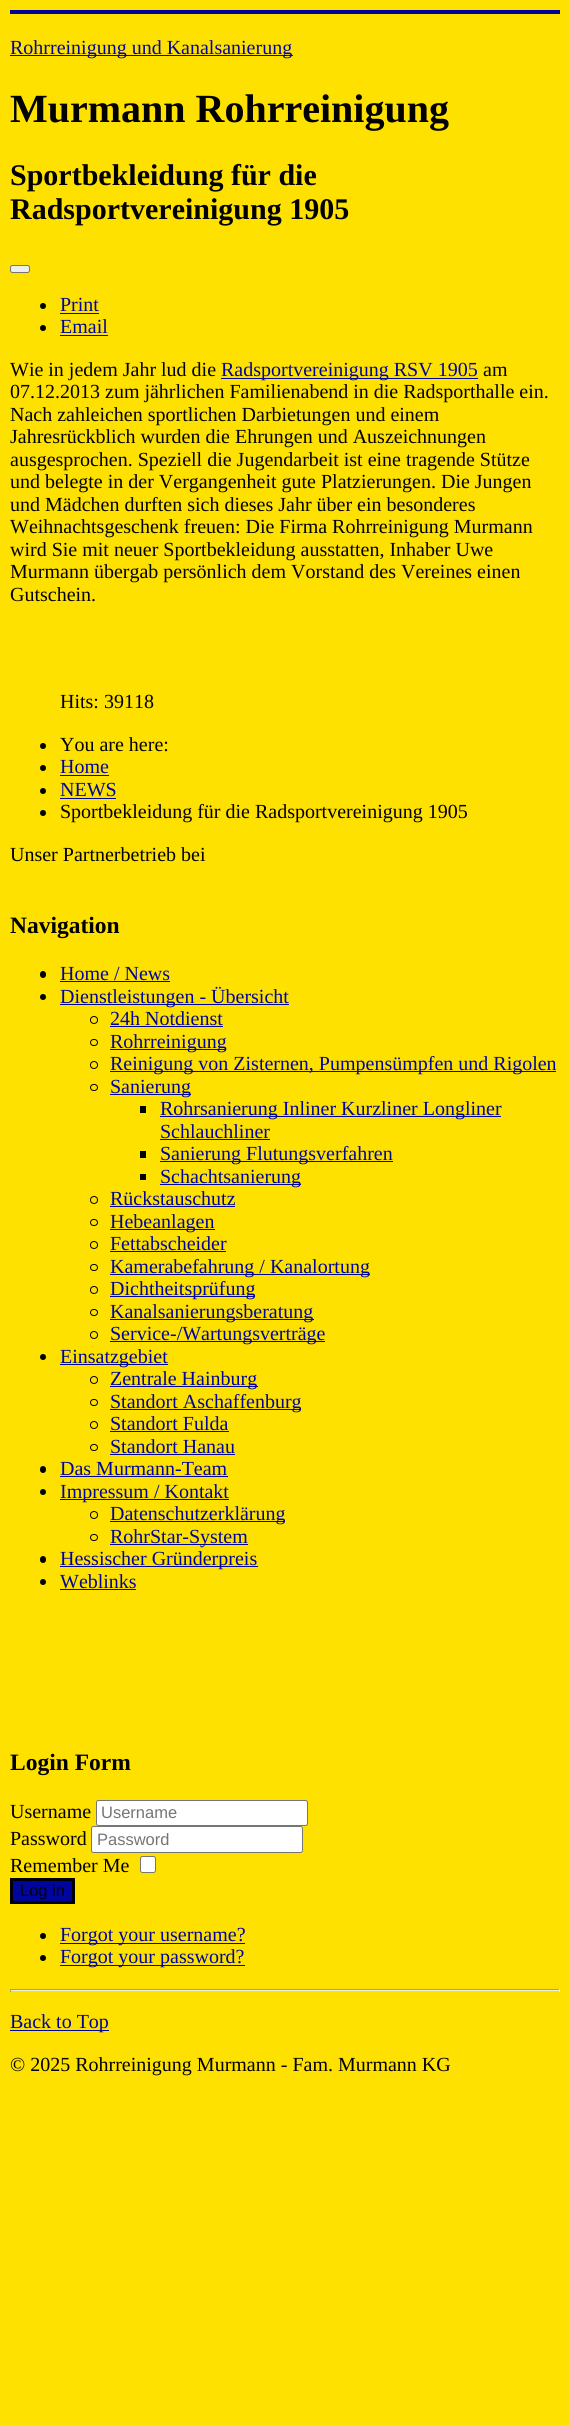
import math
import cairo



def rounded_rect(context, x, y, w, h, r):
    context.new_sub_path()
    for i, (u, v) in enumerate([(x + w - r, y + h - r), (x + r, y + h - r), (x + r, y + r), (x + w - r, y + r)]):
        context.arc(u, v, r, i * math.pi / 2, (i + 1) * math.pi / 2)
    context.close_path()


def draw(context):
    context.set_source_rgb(1, 225 / 255, 0)
    context.paint()
    context.set_source_rgb(0, 5 / 255, 158 / 255)
    context.rectangle(10, 10, 550, 4)
    context.fill()
    context.rectangle(10, 55, 283, 1)
    context.fill()
    context.set_source_rgb(239 / 255, 239 / 255, 239 / 255)
    rounded_rect(context, 10.5, 265.5, 19, 7, 2)
    context.fill_preserve()
    context.set_source_rgb(118 / 255, 118 / 255, 118 / 255)
    context.set_line_width(1)
    context.stroke()
    context.set_source_rgb(0, 0, 0)
    context.arc(43, 306, 3, 0, 2 * math.pi)
    context.fill()
    context.set_source_rgb(0, 5 / 255, 158 / 255)
    context.rectangle(60, 313, 39, 1)
    context.fill()
    context.set_source_rgb(0, 0, 0)
    context.arc(43, 328, 3, 0, 2 * math.pi)
    context.fill()
    context.set_source_rgb(0, 5 / 255, 158 / 255)
    context.rectangle(60, 335, 48, 1)
    context.fill()
    context.rectangle(221, 378, 257, 1)
    context.fill()
    context.set_source_rgb(0, 0, 0)
    context.arc(43, 746, 3, 0, 2 * math.pi)
    context.fill()
    context.arc(43, 768, 3, 0, 2 * math.pi)
    context.fill()
    context.set_source_rgb(0, 5 / 255, 158 / 255)
    context.rectangle(60, 775, 49, 1)
    context.fill()
    context.set_source_rgb(0, 0, 0)
    context.arc(43, 791, 3, 0, 2 * math.pi)
    context.fill()
    context.set_source_rgb(0, 5 / 255, 158 / 255)
    context.rectangle(60, 798, 56, 1)
    context.fill()
    context.set_source_rgb(0, 0, 0)
    context.arc(43, 813, 3, 0, 2 * math.pi)
    context.fill()
    rounded_rect(context, 40, 971, 6, 7, 3)
    context.fill()
    context.set_source_rgb(0, 5 / 255, 158 / 255)
    context.rectangle(60, 981, 110, 1)
    context.fill()
    context.set_source_rgb(0, 0, 0)
    context.arc(43, 997, 3, 0, 2 * math.pi)
    context.fill()
    context.set_source_rgb(0, 5 / 255, 158 / 255)
    context.rectangle(60, 1004, 229, 1)
    context.fill()
    context.arc(94, 1020, 3.5, 0, 2 * math.pi)
    context.set_source_rgb(0, 0, 0)
    context.stroke()
    context.set_source_rgb(0, 5 / 255, 158 / 255)
    context.rectangle(110, 1026, 113, 1)
    context.fill()
    rounded_rect(context, 90.5, 1039.5, 7, 6, 3)
    context.set_source_rgb(0, 0, 0)
    context.stroke()
    context.set_source_rgb(0, 5 / 255, 158 / 255)
    context.rectangle(110, 1049, 116, 1)
    context.fill()
    context.arc(94, 1065, 3.5, 0, 2 * math.pi)
    context.set_source_rgb(0, 0, 0)
    context.stroke()
    context.set_source_rgb(0, 5 / 255, 158 / 255)
    context.rectangle(110, 1071, 446, 1)
    context.fill()
    rounded_rect(context, 90.5, 1084.5, 7, 6, 3)
    context.set_source_rgb(0, 0, 0)
    context.stroke()
    context.set_source_rgb(0, 5 / 255, 158 / 255)
    context.rectangle(110, 1094, 81, 1)
    context.fill()
    context.set_source_rgb(0, 0, 0)
    context.rectangle(140, 1106, 6, 7)
    context.fill()
    context.set_source_rgb(0, 5 / 255, 158 / 255)
    context.rectangle(160, 1116, 341, 1)
    context.fill()
    context.rectangle(160, 1139, 110, 1)
    context.fill()
    context.set_source_rgb(0, 0, 0)
    context.rectangle(140, 1151, 6, 7)
    context.fill()
    context.set_source_rgb(0, 5 / 255, 158 / 255)
    context.rectangle(160, 1161, 233, 1)
    context.fill()
    context.set_source_rgb(0, 0, 0)
    context.rectangle(140, 1174, 6, 6)
    context.fill()
    context.set_source_rgb(0, 5 / 255, 158 / 255)
    context.rectangle(160, 1184, 141, 1)
    context.fill()
    context.arc(94, 1200, 3.5, 0, 2 * math.pi)
    context.set_source_rgb(0, 0, 0)
    context.stroke()
    context.set_source_rgb(0, 5 / 255, 158 / 255)
    context.rectangle(110, 1206, 125, 1)
    context.fill()
    rounded_rect(context, 90.5, 1219.5, 7, 6, 3)
    context.set_source_rgb(0, 0, 0)
    context.stroke()
    context.set_source_rgb(0, 5 / 255, 158 / 255)
    context.rectangle(110, 1229, 105, 1)
    context.fill()
    context.arc(94, 1245, 3.5, 0, 2 * math.pi)
    context.set_source_rgb(0, 0, 0)
    context.stroke()
    context.set_source_rgb(0, 5 / 255, 158 / 255)
    context.rectangle(110, 1251, 116, 1)
    context.fill()
    rounded_rect(context, 90.5, 1264.5, 7, 6, 3)
    context.set_source_rgb(0, 0, 0)
    context.stroke()
    context.set_source_rgb(0, 5 / 255, 158 / 255)
    context.rectangle(110, 1274, 260, 1)
    context.fill()
    context.arc(94, 1290, 3.5, 0, 2 * math.pi)
    context.set_source_rgb(0, 0, 0)
    context.stroke()
    context.set_source_rgb(0, 5 / 255, 158 / 255)
    context.rectangle(110, 1296, 145, 1)
    context.fill()
    rounded_rect(context, 90.5, 1309.5, 7, 6, 3)
    context.set_source_rgb(0, 0, 0)
    context.stroke()
    context.set_source_rgb(0, 5 / 255, 158 / 255)
    context.rectangle(110, 1319, 204, 1)
    context.fill()
    context.arc(94, 1335, 3.5, 0, 2 * math.pi)
    context.set_source_rgb(0, 0, 0)
    context.stroke()
    context.set_source_rgb(0, 5 / 255, 158 / 255)
    context.rectangle(110, 1341, 215, 1)
    context.fill()
    context.set_source_rgb(0, 0, 0)
    context.arc(43, 1357, 3, 0, 2 * math.pi)
    context.fill()
    context.set_source_rgb(0, 5 / 255, 158 / 255)
    context.rectangle(60, 1364, 108, 1)
    context.fill()
    context.arc(94, 1380, 3.5, 0, 2 * math.pi)
    context.set_source_rgb(0, 0, 0)
    context.stroke()
    context.set_source_rgb(0, 5 / 255, 158 / 255)
    context.rectangle(110, 1386, 148, 1)
    context.fill()
    rounded_rect(context, 90.5, 1399.5, 7, 6, 3)
    context.set_source_rgb(0, 0, 0)
    context.stroke()
    context.set_source_rgb(0, 5 / 255, 158 / 255)
    context.rectangle(110, 1409, 191, 1)
    context.fill()
    context.arc(94, 1425, 3.5, 0, 2 * math.pi)
    context.set_source_rgb(0, 0, 0)
    context.stroke()
    context.set_source_rgb(0, 5 / 255, 158 / 255)
    context.rectangle(110, 1431, 119, 1)
    context.fill()
    rounded_rect(context, 90.5, 1444.5, 7, 6, 3)
    context.set_source_rgb(0, 0, 0)
    context.stroke()
    context.set_source_rgb(0, 5 / 255, 158 / 255)
    context.rectangle(110, 1454, 125, 1)
    context.fill()
    context.set_source_rgb(0, 0, 0)
    rounded_rect(context, 40, 1466, 6, 7, 3)
    context.fill()
    context.set_source_rgb(0, 5 / 255, 158 / 255)
    context.rectangle(60, 1476, 168, 1)
    context.fill()
    context.set_source_rgb(0, 0, 0)
    context.arc(43, 1492, 3, 0, 2 * math.pi)
    context.fill()
    context.set_source_rgb(0, 5 / 255, 158 / 255)
    context.rectangle(60, 1499, 169, 1)
    context.fill()
    context.arc(94, 1515, 3.5, 0, 2 * math.pi)
    context.set_source_rgb(0, 0, 0)
    context.stroke()
    context.set_source_rgb(0, 5 / 255, 158 / 255)
    context.rectangle(110, 1521, 175, 1)
    context.fill()
    rounded_rect(context, 90.5, 1534.5, 7, 6, 3)
    context.set_source_rgb(0, 0, 0)
    context.stroke()
    context.set_source_rgb(0, 5 / 255, 158 / 255)
    context.rectangle(110, 1544, 138, 1)
    context.fill()
    context.set_source_rgb(0, 0, 0)
    rounded_rect(context, 40, 1556, 6, 7, 3)
    context.fill()
    context.set_source_rgb(0, 5 / 255, 158 / 255)
    context.rectangle(60, 1566, 198, 1)
    context.fill()
    context.set_source_rgb(0, 0, 0)
    context.arc(43, 1582, 3, 0, 2 * math.pi)
    context.fill()
    context.set_source_rgb(0, 5 / 255, 158 / 255)
    context.rectangle(60, 1589, 76, 1)
    context.fill()
    context.set_source_rgb(1, 1, 1)
    rounded_rect(context, 96.5, 1800.5, 211, 25, 2)
    context.fill_preserve()
    context.set_source_rgb(118 / 255, 118 / 255, 118 / 255)
    context.stroke()
    context.set_source_rgb(1, 1, 1)
    rounded_rect(context, 91.5, 1826.5, 211, 26, 2)
    context.fill_preserve()
    context.set_source_rgb(118 / 255, 118 / 255, 118 / 255)
    context.stroke()
    context.set_source_rgb(1, 1, 1)
    rounded_rect(context, 140.5, 1856.5, 15, 16, 2)
    context.fill_preserve()
    context.set_source_rgb(118 / 255, 118 / 255, 118 / 255)
    context.stroke()
    context.set_source_rgb(0, 5 / 255, 158 / 255)
    context.rectangle(11.5, 1879.5, 62, 23)
    context.fill_preserve()
    context.set_source_rgb(0, 0, 0)
    context.set_line_width(3)
    context.stroke()
    context.arc(43, 1936, 3, 0, 2 * math.pi)
    context.fill()
    context.set_source_rgb(0, 5 / 255, 158 / 255)
    context.rectangle(60, 1943, 185, 1)
    context.fill()
    context.set_source_rgb(0, 0, 0)
    context.arc(43, 1958, 3, 0, 2 * math.pi)
    context.fill()
    context.set_source_rgb(0, 5 / 255, 158 / 255)
    context.rectangle(60, 1965, 185, 1)
    context.fill()
    context.set_source_rgb(159 / 255, 159 / 255, 159 / 255)
    context.rectangle(10, 1989, 550, 1)
    context.fill()
    context.set_source_rgb(238 / 255, 238 / 255, 238 / 255)
    context.rectangle(559, 1989, 1, 3)
    context.fill()
    context.rectangle(10, 1990, 550, 1)
    context.fill()
    context.set_source_rgb(159 / 255, 159 / 255, 159 / 255)
    context.rectangle(10, 1989, 1, 3)
    context.fill()
    context.set_source_rgb(0, 5 / 255, 158 / 255)
    context.rectangle(10, 2030, 99, 1)
    context.fill()
    context.select_font_face("Liberation Serif")
    context.set_font_size(20)
    context.move_to(10, 54)
    context.show_text("Rohrreinigung und Kanalsanierung")
    context.select_font_face("Liberation Serif", cairo.FontSlant.NORMAL, cairo.FontWeight.BOLD)
    context.set_font_size(40)
    context.set_source_rgb(0, 0, 0)
    context.move_to(10, 122)
    context.show_text("Murmann Rohrreinigung")
    context.set_font_size(30)
    context.move_to(10, 185)
    context.show_text("Sportbekleidung für die")
    context.move_to(10, 219)
    context.show_text("Radsportvereinigung 1905")
    context.select_font_face("Liberation Serif")
    context.set_font_size(20)
    context.set_source_rgb(0, 5 / 255, 158 / 255)
    context.move_to(60, 311)
    context.show_text("Print")
    context.move_to(60, 333)
    context.show_text("Email")
    context.set_source_rgb(0, 0, 0)
    context.move_to(10, 376)
    context.show_text("Wie in jedem Jahr lud die")
    context.set_source_rgb(0, 5 / 255, 158 / 255)
    context.move_to(221, 376)
    context.show_text("Radsportvereinigung RSV 1905")
    context.set_source_rgb(0, 0, 0)
    context.move_to(483, 376)
    context.show_text("am")
    context.move_to(10, 398)
    context.show_text("07.12.2013 zum jährlichen Familienabend in die Radsporthalle ein.")
    context.move_to(10, 421)
    context.show_text("Nach zahleichen sportlichen Darbietungen und einem")
    context.move_to(10, 443)
    context.show_text("Jahresrückblich wurden die Ehrungen und Auszeichnungen")
    context.move_to(10, 466)
    context.show_text("ausgesprochen. Speziell die Jugendarbeit ist eine tragende Stütze")
    context.move_to(10, 488)
    context.show_text("und belegte in der Vergangenheit gute Platzierungen. Die Jungen")
    context.move_to(10, 511)
    context.show_text("und Mädchen durften sich dieses Jahr über ein besonderes")
    context.move_to(10, 533)
    context.show_text("Weihnachtsgeschenk freuen: Die Firma Rohrreinigung Murmann")
    context.move_to(10, 556)
    context.show_text("wird Sie mit neuer Sportbekleidung ausstatten, Inhaber Uwe")
    context.move_to(10, 578)
    context.show_text("Murmann übergab persönlich dem Vorstand des Vereines einen")
    context.move_to(10, 601)
    context.show_text("Gutschein.")
    context.move_to(60, 708)
    context.show_text("Hits: 39118")
    context.move_to(60, 751)
    context.show_text("You are here:")
    context.set_source_rgb(0, 5 / 255, 158 / 255)
    context.move_to(60, 773)
    context.show_text("Home")
    context.move_to(60, 796)
    context.show_text("NEWS")
    context.set_source_rgb(0, 0, 0)
    context.move_to(60, 818)
    context.show_text("Sportbekleidung für die Radsportvereinigung 1905")
    context.move_to(10, 861)
    context.show_text("Unser Partnerbetrieb bei")
    context.select_font_face("Liberation Serif", cairo.FontSlant.NORMAL, cairo.FontWeight.BOLD)
    context.set_font_size(23.5)
    context.move_to(10, 933)
    context.show_text("Navigation")
    context.select_font_face("Liberation Serif")
    context.set_font_size(20)
    context.set_source_rgb(0, 5 / 255, 158 / 255)
    context.move_to(60, 980)
    context.show_text("Home / News")
    context.move_to(60, 1003)
    context.show_text("Dienstleistungen - Übersicht")
    context.move_to(110, 1025)
    context.show_text("24h Notdienst")
    context.move_to(110, 1048)
    context.show_text("Rohrreinigung")
    context.move_to(110, 1070)
    context.show_text("Reinigung von Zisternen, Pumpensümpfen und Rigolen")
    context.move_to(110, 1093)
    context.show_text("Sanierung")
    context.move_to(160, 1115)
    context.show_text("Rohrsanierung Inliner Kurzliner Longliner")
    context.move_to(160, 1138)
    context.show_text("Schlauchliner")
    context.move_to(160, 1160)
    context.show_text("Sanierung Flutungsverfahren")
    context.move_to(160, 1183)
    context.show_text("Schachtsanierung")
    context.move_to(110, 1205)
    context.show_text("Rückstauschutz")
    context.move_to(110, 1228)
    context.show_text("Hebeanlagen")
    context.move_to(110, 1250)
    context.show_text("Fettabscheider")
    context.move_to(110, 1273)
    context.show_text("Kamerabefahrung / Kanalortung")
    context.move_to(110, 1295)
    context.show_text("Dichtheitsprüfung")
    context.move_to(110, 1318)
    context.show_text("Kanalsanierungsberatung")
    context.move_to(110, 1340)
    context.show_text("Service-/Wartungsverträge")
    context.move_to(60, 1363)
    context.show_text("Einsatzgebiet")
    context.move_to(110, 1385)
    context.show_text("Zentrale Hainburg")
    context.move_to(110, 1408)
    context.show_text("Standort Aschaffenburg")
    context.move_to(110, 1430)
    context.show_text("Standort Fulda")
    context.move_to(110, 1453)
    context.show_text("Standort Hanau")
    context.move_to(60, 1475)
    context.show_text("Das Murmann-Team")
    context.move_to(60, 1498)
    context.show_text("Impressum / Kontakt")
    context.move_to(110, 1520)
    context.show_text("Datenschutzerklärung")
    context.move_to(110, 1543)
    context.show_text("RohrStar-System")
    context.move_to(60, 1565)
    context.show_text("Hessischer Gründerpreis")
    context.move_to(60, 1588)
    context.show_text("Weblinks")
    context.select_font_face("Liberation Serif", cairo.FontSlant.NORMAL, cairo.FontWeight.BOLD)
    context.set_font_size(23.5)
    context.set_source_rgb(0, 0, 0)
    context.move_to(10, 1770)
    context.show_text("Login Form")
    context.select_font_face("Liberation Serif")
    context.set_font_size(20)
    context.move_to(10, 1818)
    context.show_text("Username")
    context.select_font_face("Liberation Sans")
    context.set_font_size(16.5)
    context.set_source_rgb(117 / 255, 117 / 255, 117 / 255)
    context.move_to(101, 1818)
    context.show_text("Username")
    context.select_font_face("Liberation Serif")
    context.set_font_size(20)
    context.set_source_rgb(0, 0, 0)
    context.move_to(10, 1845)
    context.show_text("Password")
    context.select_font_face("Liberation Sans")
    context.set_font_size(16.5)
    context.set_source_rgb(117 / 255, 117 / 255, 117 / 255)
    context.move_to(97, 1845)
    context.show_text("Password")
    context.select_font_face("Liberation Serif")
    context.set_font_size(20)
    context.set_source_rgb(0, 0, 0)
    context.move_to(10, 1872)
    context.show_text("Remember Me")
    context.select_font_face("Liberation Sans")
    context.set_font_size(16.5)
    context.move_to(20, 1896)
    context.show_text("Log in")
    context.select_font_face("Liberation Serif")
    context.set_font_size(20)
    context.set_source_rgb(0, 5 / 255, 158 / 255)
    context.move_to(60, 1941)
    context.show_text("Forgot your username?")
    context.move_to(60, 1963)
    context.show_text("Forgot your password?")
    context.move_to(10, 2028)
    context.show_text("Back to Top")
    context.set_source_rgb(0, 0, 0)
    context.move_to(10, 2071)
    context.show_text("© 2025 Rohrreinigung Murmann - Fam. Murmann KG")


surface = cairo.ImageSurface(cairo.Format.RGB24, 569, 2425)
context = cairo.Context(surface)
options = cairo.FontOptions()
options.set_hint_metrics(cairo.HintMetrics.OFF)
options.set_hint_style(cairo.HintStyle.NONE)
context.set_font_options(options)
context.set_miter_limit(4)
draw(context)
surface.write_to_png("out.png")
